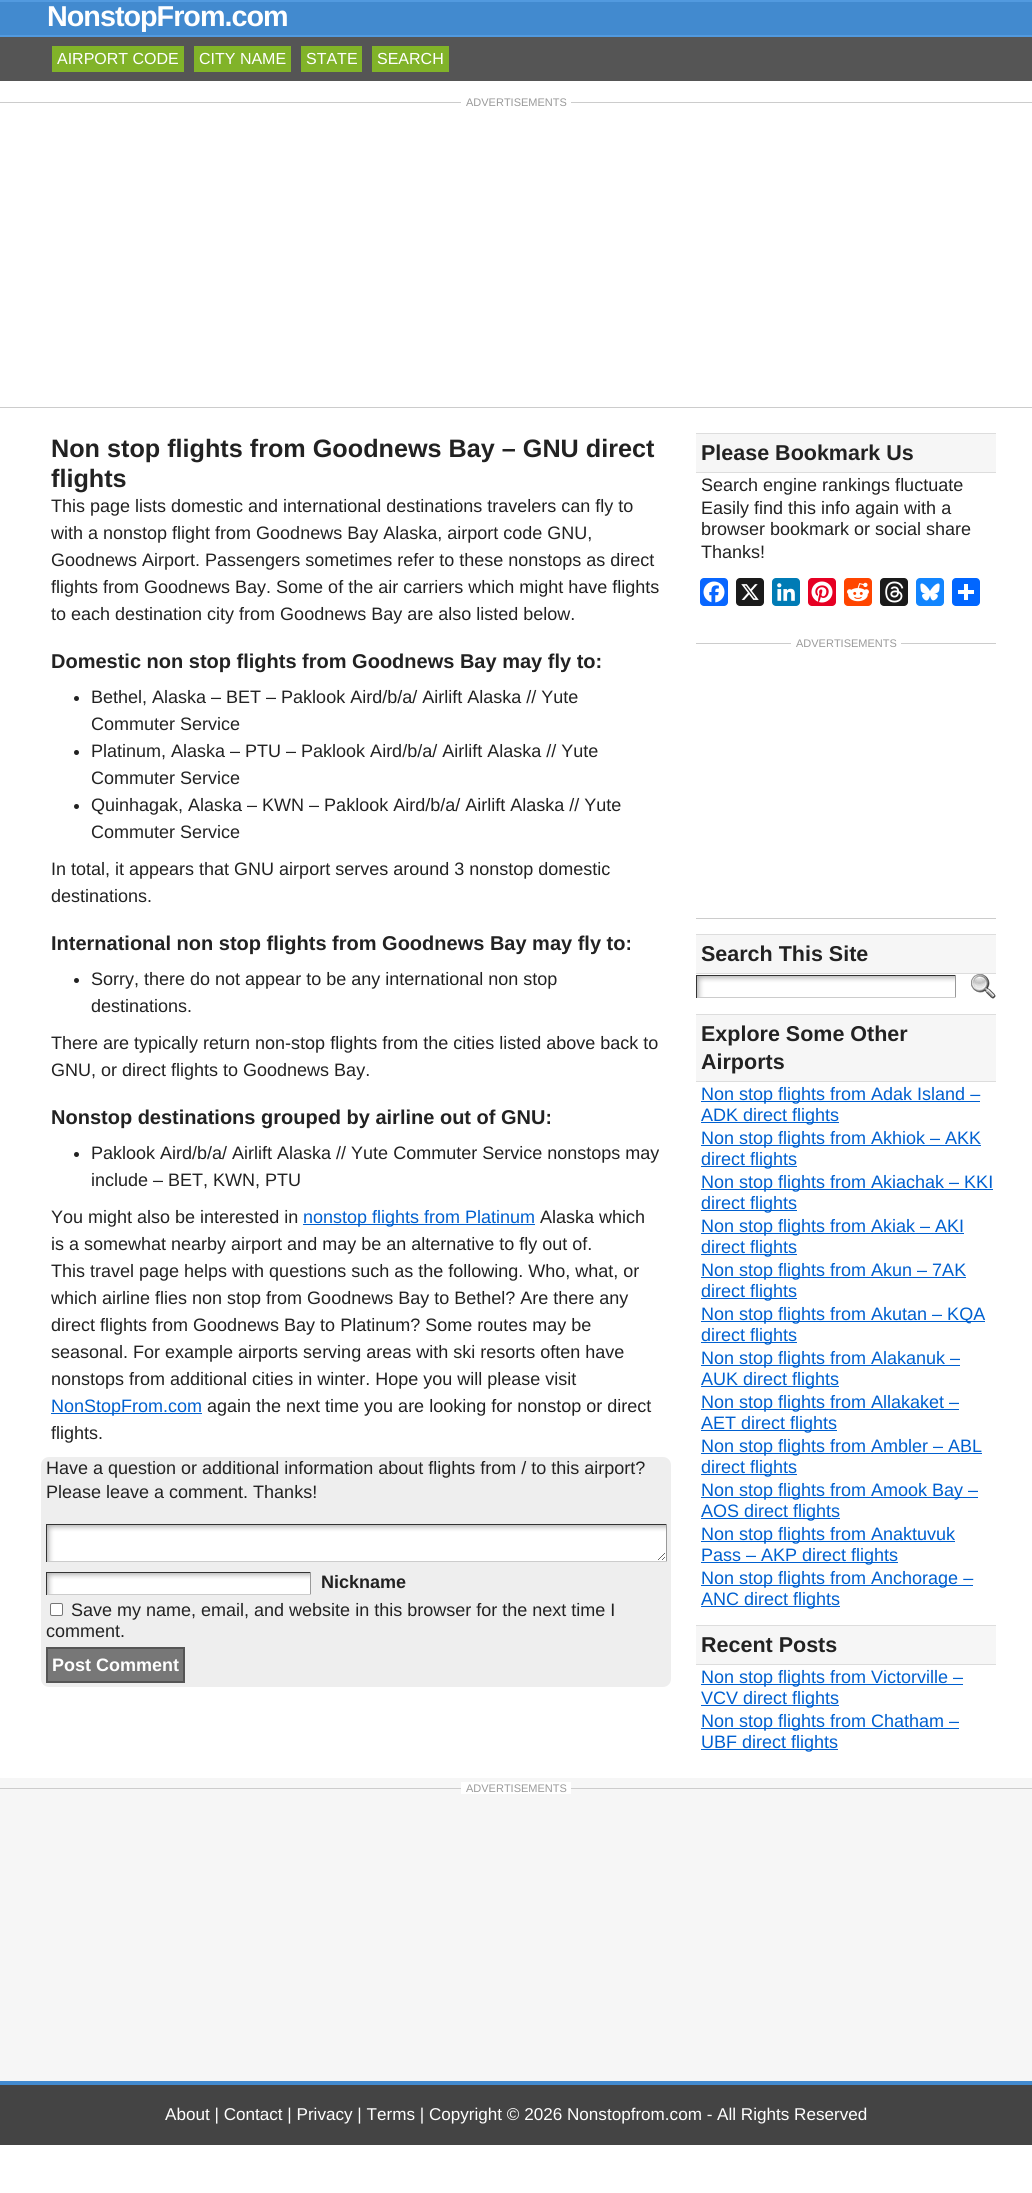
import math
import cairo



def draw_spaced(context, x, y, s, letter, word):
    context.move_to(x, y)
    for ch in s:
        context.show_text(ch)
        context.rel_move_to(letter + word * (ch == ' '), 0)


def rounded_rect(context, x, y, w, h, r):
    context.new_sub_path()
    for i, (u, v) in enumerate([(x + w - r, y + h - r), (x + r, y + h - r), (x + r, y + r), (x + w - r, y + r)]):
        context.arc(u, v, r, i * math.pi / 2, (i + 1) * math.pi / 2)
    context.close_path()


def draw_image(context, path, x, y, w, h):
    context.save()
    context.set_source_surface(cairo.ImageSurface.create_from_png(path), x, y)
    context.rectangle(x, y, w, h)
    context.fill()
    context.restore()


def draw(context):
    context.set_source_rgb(1, 1, 1)
    context.paint()
    context.set_source_rgb(82 / 255, 154 / 255, 223 / 255)
    context.rectangle(0, 0, 1032, 2)
    context.fill()
    context.set_source_rgb(66 / 255, 138 / 255, 207 / 255)
    context.rectangle(0, 2, 1032, 33)
    context.fill()
    context.set_source_rgb(82 / 255, 154 / 255, 223 / 255)
    context.rectangle(0, 35, 1032, 2)
    context.fill()
    context.set_source_rgb(85 / 255, 85 / 255, 85 / 255)
    context.rectangle(0, 37, 1032, 44)
    context.fill()
    context.set_source_rgb(129 / 255, 179 / 255, 41 / 255)
    context.rectangle(52, 46, 132, 26)
    context.fill()
    context.rectangle(194, 46, 97, 26)
    context.fill()
    context.rectangle(301, 46, 61, 26)
    context.fill()
    context.rectangle(372, 46, 77, 26)
    context.fill()
    context.set_source_rgb(204 / 255, 204 / 255, 204 / 255)
    context.rectangle(0, 102, 1032, 1)
    context.fill()
    context.set_source_rgb(1, 1, 1)
    context.rectangle(461, 102, 110, 1)
    context.fill()
    context.set_source_rgb(204 / 255, 204 / 255, 204 / 255)
    context.rectangle(0, 407, 1032, 1)
    context.fill()
    context.set_source_rgb(34 / 255, 34 / 255, 34 / 255)
    context.arc(76.5, 698.5, 2.5, 0, 2 * math.pi)
    context.fill()
    context.arc(76.5, 752.5, 2.5, 0, 2 * math.pi)
    context.fill()
    context.arc(76.5, 806.5, 2.5, 0, 2 * math.pi)
    context.fill()
    context.arc(76.5, 980.5, 2.5, 0, 2 * math.pi)
    context.fill()
    context.arc(76.5, 1154.5, 2.5, 0, 2 * math.pi)
    context.fill()
    context.set_source_rgb(0, 96 / 255, 208 / 255)
    context.rectangle(303, 1224, 232, 1)
    context.fill()
    context.rectangle(51, 1413, 151, 1)
    context.fill()
    context.set_source_rgb(238 / 255, 238 / 255, 238 / 255)
    rounded_rect(context, 41, 1457, 630, 230, 8)
    context.fill()
    draw_image(context, "images/1.png", 47, 1525, 619, 36)
    context.set_source_rgb(51 / 255, 51 / 255, 51 / 255)
    context.rectangle(46, 1524, 621, 1)
    context.fill()
    context.set_source_rgb(153 / 255, 153 / 255, 153 / 255)
    context.rectangle(666, 1524, 1, 38)
    context.fill()
    context.set_source_rgb(204 / 255, 204 / 255, 204 / 255)
    context.rectangle(46, 1561, 621, 1)
    context.fill()
    context.set_source_rgb(51 / 255, 51 / 255, 51 / 255)
    context.rectangle(46, 1524, 1, 38)
    context.fill()
    draw_image(context, "images/2.png", 47, 1573, 263, 21)
    context.rectangle(46, 1572, 265, 1)
    context.fill()
    context.set_source_rgb(153 / 255, 153 / 255, 153 / 255)
    context.rectangle(310, 1572, 1, 23)
    context.fill()
    context.set_source_rgb(204 / 255, 204 / 255, 204 / 255)
    context.rectangle(46, 1594, 265, 1)
    context.fill()
    context.set_source_rgb(51 / 255, 51 / 255, 51 / 255)
    context.rectangle(46, 1572, 1, 23)
    context.fill()
    context.set_source_rgb(1, 1, 1)
    rounded_rect(context, 50.5, 1603.5, 12, 12, 1.5)
    context.fill_preserve()
    context.set_source_rgb(118 / 255, 118 / 255, 118 / 255)
    context.set_line_width(1)
    context.stroke()
    context.set_source_rgb(119 / 255, 119 / 255, 119 / 255)
    context.rectangle(47, 1648, 137, 34)
    context.fill_preserve()
    context.set_source_rgb(85 / 255, 85 / 255, 85 / 255)
    context.set_line_width(2)
    context.stroke()
    context.set_source_rgb(246 / 255, 246 / 255, 246 / 255)
    context.rectangle(696, 434, 300, 38)
    context.fill()
    context.set_source_rgb(221 / 255, 221 / 255, 221 / 255)
    context.rectangle(696, 433, 300, 1)
    context.fill()
    context.rectangle(696, 472, 300, 1)
    context.fill()
    context.set_source_rgb(8 / 255, 102 / 255, 1)
    rounded_rect(context, 700, 578, 28, 28, 4)
    context.fill()
    draw_image(context, "images/3.png", 703, 581, 22, 22)
    context.set_source_rgb(26 / 255, 26 / 255, 26 / 255)
    rounded_rect(context, 736, 578, 28, 28, 4)
    context.fill()
    draw_image(context, "images/4.png", 741, 584, 18, 16)
    context.set_source_rgb(0, 123 / 255, 181 / 255)
    rounded_rect(context, 772, 578, 28, 28, 4)
    context.fill()
    draw_image(context, "images/5.png", 777, 583, 18, 18)
    context.set_source_rgb(230 / 255, 0, 35 / 255)
    rounded_rect(context, 808, 578, 28, 28, 4)
    context.fill()
    draw_image(context, "images/6.png", 811, 581, 22, 22)
    context.set_source_rgb(1, 69 / 255, 0)
    rounded_rect(context, 844, 578, 28, 28, 4)
    context.fill()
    draw_image(context, "images/7.png", 847, 582, 22, 20)
    context.set_source_rgb(26 / 255, 26 / 255, 26 / 255)
    rounded_rect(context, 880, 578, 28, 28, 4)
    context.fill()
    draw_image(context, "images/8.png", 885, 581, 19, 22)
    context.set_source_rgb(18 / 255, 133 / 255, 254 / 255)
    rounded_rect(context, 916, 578, 28, 28, 4)
    context.fill()
    draw_image(context, "images/9.png", 920, 583, 20, 18)
    context.set_source_rgb(1 / 255, 102 / 255, 1)
    rounded_rect(context, 952, 578, 28, 28, 4)
    context.fill()
    context.set_source_rgb(1, 1, 1)
    context.rectangle(964, 584, 4, 16)
    context.fill()
    context.rectangle(958, 590, 16, 4)
    context.fill()
    context.set_source_rgb(204 / 255, 204 / 255, 204 / 255)
    context.rectangle(696, 643, 300, 1)
    context.fill()
    context.set_source_rgb(1, 1, 1)
    context.rectangle(791, 643, 110, 1)
    context.fill()
    context.set_source_rgb(204 / 255, 204 / 255, 204 / 255)
    context.rectangle(696, 918, 300, 1)
    context.fill()
    context.set_source_rgb(246 / 255, 246 / 255, 246 / 255)
    context.rectangle(696, 935, 300, 38)
    context.fill()
    context.set_source_rgb(221 / 255, 221 / 255, 221 / 255)
    context.rectangle(696, 934, 300, 1)
    context.fill()
    context.rectangle(696, 973, 300, 1)
    context.fill()
    draw_image(context, "images/10.png", 697, 976, 258, 21)
    context.set_source_rgb(51 / 255, 51 / 255, 51 / 255)
    context.rectangle(696, 975, 260, 1)
    context.fill()
    context.set_source_rgb(153 / 255, 153 / 255, 153 / 255)
    context.rectangle(955, 975, 1, 23)
    context.fill()
    context.set_source_rgb(204 / 255, 204 / 255, 204 / 255)
    context.rectangle(696, 997, 260, 1)
    context.fill()
    context.set_source_rgb(51 / 255, 51 / 255, 51 / 255)
    context.rectangle(696, 975, 1, 23)
    context.fill()
    draw_image(context, "images/11.png", 971, 974, 25, 25)
    context.set_source_rgb(246 / 255, 246 / 255, 246 / 255)
    context.rectangle(696, 1015, 300, 66)
    context.fill()
    context.set_source_rgb(221 / 255, 221 / 255, 221 / 255)
    context.rectangle(696, 1014, 300, 1)
    context.fill()
    context.rectangle(696, 1081, 300, 1)
    context.fill()
    context.set_source_rgb(0, 96 / 255, 208 / 255)
    context.rectangle(701, 1101, 279, 1)
    context.fill()
    context.rectangle(701, 1122, 138, 1)
    context.fill()
    context.rectangle(701, 1145, 280, 1)
    context.fill()
    context.rectangle(701, 1166, 96, 1)
    context.fill()
    context.rectangle(701, 1189, 292, 1)
    context.fill()
    context.rectangle(701, 1210, 96, 1)
    context.fill()
    context.rectangle(701, 1233, 263, 1)
    context.fill()
    context.rectangle(701, 1254, 96, 1)
    context.fill()
    context.rectangle(701, 1277, 265, 1)
    context.fill()
    context.rectangle(701, 1298, 96, 1)
    context.fill()
    context.rectangle(701, 1321, 284, 1)
    context.fill()
    context.rectangle(701, 1342, 96, 1)
    context.fill()
    context.rectangle(701, 1365, 259, 1)
    context.fill()
    context.rectangle(701, 1386, 138, 1)
    context.fill()
    context.rectangle(701, 1409, 258, 1)
    context.fill()
    context.rectangle(701, 1430, 136, 1)
    context.fill()
    context.rectangle(701, 1453, 281, 1)
    context.fill()
    context.rectangle(701, 1474, 96, 1)
    context.fill()
    context.rectangle(701, 1497, 277, 1)
    context.fill()
    context.rectangle(701, 1518, 139, 1)
    context.fill()
    context.rectangle(701, 1541, 254, 1)
    context.fill()
    context.rectangle(701, 1562, 197, 1)
    context.fill()
    context.rectangle(701, 1585, 272, 1)
    context.fill()
    context.rectangle(701, 1606, 139, 1)
    context.fill()
    context.set_source_rgb(246 / 255, 246 / 255, 246 / 255)
    context.rectangle(696, 1626, 300, 38)
    context.fill()
    context.set_source_rgb(221 / 255, 221 / 255, 221 / 255)
    context.rectangle(696, 1625, 300, 1)
    context.fill()
    context.rectangle(696, 1664, 300, 1)
    context.fill()
    context.set_source_rgb(0, 96 / 255, 208 / 255)
    context.rectangle(701, 1684, 262, 1)
    context.fill()
    context.rectangle(701, 1705, 138, 1)
    context.fill()
    context.rectangle(701, 1728, 258, 1)
    context.fill()
    context.rectangle(701, 1749, 137, 1)
    context.fill()
    context.set_source_rgb(68 / 255, 68 / 255, 68 / 255)
    context.rectangle(0, 2085, 1032, 60)
    context.fill()
    context.set_source_rgb(246 / 255, 246 / 255, 246 / 255)
    context.rectangle(0, 1778, 1032, 303)
    context.fill()
    context.set_source_rgb(66 / 255, 138 / 255, 207 / 255)
    context.rectangle(0, 2081, 1032, 4)
    context.fill()
    context.set_source_rgb(204 / 255, 204 / 255, 204 / 255)
    context.rectangle(0, 1788, 1032, 1)
    context.fill()
    context.set_source_rgb(1, 1, 1)
    context.rectangle(461, 1782, 110, 12)
    context.fill()
    context.select_font_face("Liberation Sans", cairo.FontSlant.NORMAL, cairo.FontWeight.BOLD)
    context.set_font_size(28.75)
    draw_spaced(context, 47, 26, "NonstopFrom.com", -1, 0)
    context.select_font_face("Liberation Sans")
    context.set_font_size(16)
    context.move_to(57, 64)
    context.show_text("AIRPORT CODE")
    context.move_to(199, 64)
    context.show_text("CITY NAME")
    context.move_to(306, 64)
    context.show_text("STATE")
    context.move_to(377, 64)
    context.show_text("SEARCH")
    context.set_font_size(11)
    context.set_source_rgb(153 / 255, 153 / 255, 153 / 255)
    context.move_to(466, 106)
    context.show_text("ADVERTISEMENTS")
    context.select_font_face("Liberation Sans", cairo.FontSlant.NORMAL, cairo.FontWeight.BOLD)
    context.set_font_size(25.2)
    context.set_source_rgb(34 / 255, 34 / 255, 34 / 255)
    context.move_to(51, 457)
    context.show_text("Non stop flights from Goodnews Bay – GNU direct")
    context.move_to(51, 487)
    context.show_text("flights")
    context.select_font_face("Liberation Sans")
    context.set_font_size(18)
    context.move_to(51, 512)
    context.show_text("This page lists domestic and international destinations travelers can fly to")
    context.move_to(51, 539)
    context.show_text("with a nonstop flight from Goodnews Bay Alaska, airport code GNU,")
    context.move_to(51, 566)
    context.show_text("Goodnews Airport. Passengers sometimes refer to these nonstops as direct")
    context.move_to(51, 593)
    context.show_text("flights from Goodnews Bay. Some of the air carriers which might have flights")
    context.move_to(51, 620)
    context.show_text("to each destination city from Goodnews Bay are also listed below.")
    context.select_font_face("Liberation Sans", cairo.FontSlant.NORMAL, cairo.FontWeight.BOLD)
    context.set_font_size(20)
    context.move_to(51, 668)
    context.show_text("Domestic non stop flights from Goodnews Bay may fly to:")
    context.select_font_face("Liberation Sans")
    context.set_font_size(18)
    context.move_to(91, 703)
    context.show_text("Bethel, Alaska – BET – Paklook Aird/b/a/ Airlift Alaska // Yute")
    context.move_to(91, 730)
    context.show_text("Commuter Service")
    context.move_to(91, 757)
    context.show_text("Platinum, Alaska – PTU – Paklook Aird/b/a/ Airlift Alaska // Yute")
    context.move_to(91, 784)
    context.show_text("Commuter Service")
    context.move_to(91, 811)
    context.show_text("Quinhagak, Alaska – KWN – Paklook Aird/b/a/ Airlift Alaska // Yute")
    context.move_to(91, 838)
    context.show_text("Commuter Service")
    context.move_to(51, 875)
    context.show_text("In total, it appears that GNU airport serves around 3 nonstop domestic")
    context.move_to(51, 902)
    context.show_text("destinations.")
    context.select_font_face("Liberation Sans", cairo.FontSlant.NORMAL, cairo.FontWeight.BOLD)
    context.set_font_size(20)
    context.move_to(51, 950)
    context.show_text("International non stop flights from Goodnews Bay may fly to:")
    context.select_font_face("Liberation Sans")
    context.set_font_size(18)
    context.move_to(91, 985)
    context.show_text("Sorry, there do not appear to be any international non stop")
    context.move_to(91, 1012)
    context.show_text("destinations.")
    context.move_to(51, 1049)
    context.show_text("There are typically return non-stop flights from the cities listed above back to")
    context.move_to(51, 1076)
    context.show_text("GNU, or direct flights to Goodnews Bay.")
    context.select_font_face("Liberation Sans", cairo.FontSlant.NORMAL, cairo.FontWeight.BOLD)
    context.set_font_size(20)
    context.move_to(51, 1124)
    context.show_text("Nonstop destinations grouped by airline out of GNU:")
    context.select_font_face("Liberation Sans")
    context.set_font_size(18)
    context.move_to(91, 1159)
    context.show_text("Paklook Aird/b/a/ Airlift Alaska // Yute Commuter Service nonstops may")
    context.move_to(91, 1186)
    context.show_text("include – BET, KWN, PTU")
    context.move_to(51, 1223)
    context.show_text("You might also be interested in")
    context.set_source_rgb(0, 96 / 255, 208 / 255)
    context.move_to(303, 1223)
    context.show_text("nonstop flights from Platinum")
    context.set_source_rgb(34 / 255, 34 / 255, 34 / 255)
    context.move_to(540, 1223)
    context.show_text("Alaska which")
    context.move_to(51, 1250)
    context.show_text("is a somewhat nearby airport and may be an alternative to fly out of.")
    context.move_to(51, 1277)
    context.show_text("This travel page helps with questions such as the following. Who, what, or")
    context.move_to(51, 1304)
    context.show_text("which airline flies non stop from Goodnews Bay to Bethel? Are there any")
    context.move_to(51, 1331)
    context.show_text("direct flights from Goodnews Bay to Platinum? Some routes may be")
    context.move_to(51, 1358)
    context.show_text("seasonal. For example airports serving areas with ski resorts often have")
    context.move_to(51, 1385)
    context.show_text("nonstops from additional cities in winter. Hope you will please visit")
    context.set_source_rgb(0, 96 / 255, 208 / 255)
    context.move_to(51, 1412)
    context.show_text("NonStopFrom.com")
    context.set_source_rgb(34 / 255, 34 / 255, 34 / 255)
    context.move_to(207, 1412)
    context.show_text("again the next time you are looking for nonstop or direct")
    context.move_to(51, 1439)
    context.show_text("flights.")
    context.move_to(46, 1474)
    context.show_text("Have a question or additional information about flights from / to this airport?")
    context.move_to(46, 1498)
    context.show_text("Please leave a comment. Thanks!")
    context.select_font_face("Liberation Sans", cairo.FontSlant.NORMAL, cairo.FontWeight.BOLD)
    context.move_to(321, 1588)
    context.show_text("Nickname")
    context.select_font_face("Liberation Sans")
    context.move_to(71, 1616)
    context.show_text("Save my name, email, and website in this browser for the next time I")
    context.move_to(46, 1637)
    context.show_text("comment.")
    context.select_font_face("Liberation Sans", cairo.FontSlant.NORMAL, cairo.FontWeight.BOLD)
    context.set_source_rgb(1, 1, 1)
    context.move_to(52, 1671)
    context.show_text("Post Comment")
    context.set_font_size(21.5)
    context.set_source_rgb(34 / 255, 34 / 255, 34 / 255)
    context.move_to(701, 460)
    context.show_text("Please Bookmark Us")
    context.select_font_face("Liberation Sans")
    context.set_font_size(18)
    context.move_to(701, 491)
    context.show_text("Search engine rankings fluctuate")
    context.move_to(701, 514)
    context.show_text("Easily find this info again with a")
    context.move_to(701, 535)
    context.show_text("browser bookmark or social share")
    context.move_to(701, 558)
    context.show_text("Thanks!")
    context.set_font_size(11)
    context.set_source_rgb(153 / 255, 153 / 255, 153 / 255)
    context.move_to(796, 647)
    context.show_text("ADVERTISEMENTS")
    context.select_font_face("Liberation Sans", cairo.FontSlant.NORMAL, cairo.FontWeight.BOLD)
    context.set_font_size(21.5)
    context.set_source_rgb(34 / 255, 34 / 255, 34 / 255)
    context.move_to(701, 961)
    context.show_text("Search This Site")
    context.move_to(701, 1041)
    context.show_text("Explore Some Other")
    context.move_to(701, 1069)
    context.show_text("Airports")
    context.select_font_face("Liberation Sans")
    context.set_font_size(18)
    context.set_source_rgb(0, 96 / 255, 208 / 255)
    context.move_to(701, 1100)
    context.show_text("Non stop flights from Adak Island –")
    context.move_to(701, 1121)
    context.show_text("ADK direct flights")
    context.move_to(701, 1144)
    context.show_text("Non stop flights from Akhiok – AKK")
    context.move_to(701, 1165)
    context.show_text("direct flights")
    context.move_to(701, 1188)
    context.show_text("Non stop flights from Akiachak – KKI")
    context.move_to(701, 1209)
    context.show_text("direct flights")
    context.move_to(701, 1232)
    context.show_text("Non stop flights from Akiak – AKI")
    context.move_to(701, 1253)
    context.show_text("direct flights")
    context.move_to(701, 1276)
    context.show_text("Non stop flights from Akun – 7AK")
    context.move_to(701, 1297)
    context.show_text("direct flights")
    context.move_to(701, 1320)
    context.show_text("Non stop flights from Akutan – KQA")
    context.move_to(701, 1341)
    context.show_text("direct flights")
    context.move_to(701, 1364)
    context.show_text("Non stop flights from Alakanuk –")
    context.move_to(701, 1385)
    context.show_text("AUK direct flights")
    context.move_to(701, 1408)
    context.show_text("Non stop flights from Allakaket –")
    context.move_to(701, 1429)
    context.show_text("AET direct flights")
    context.move_to(701, 1452)
    context.show_text("Non stop flights from Ambler – ABL")
    context.move_to(701, 1473)
    context.show_text("direct flights")
    context.move_to(701, 1496)
    context.show_text("Non stop flights from Amook Bay –")
    context.move_to(701, 1517)
    context.show_text("AOS direct flights")
    context.move_to(701, 1540)
    context.show_text("Non stop flights from Anaktuvuk")
    context.move_to(701, 1561)
    context.show_text("Pass – AKP direct flights")
    context.move_to(701, 1584)
    context.show_text("Non stop flights from Anchorage –")
    context.move_to(701, 1605)
    context.show_text("ANC direct flights")
    context.select_font_face("Liberation Sans", cairo.FontSlant.NORMAL, cairo.FontWeight.BOLD)
    context.set_font_size(21.5)
    context.set_source_rgb(34 / 255, 34 / 255, 34 / 255)
    context.move_to(701, 1652)
    context.show_text("Recent Posts")
    context.select_font_face("Liberation Sans")
    context.set_font_size(18)
    context.set_source_rgb(0, 96 / 255, 208 / 255)
    context.move_to(701, 1683)
    context.show_text("Non stop flights from Victorville –")
    context.move_to(701, 1704)
    context.show_text("VCV direct flights")
    context.move_to(701, 1727)
    context.show_text("Non stop flights from Chatham –")
    context.move_to(701, 1748)
    context.show_text("UBF direct flights")
    context.set_font_size(11)
    context.set_source_rgb(153 / 255, 153 / 255, 153 / 255)
    context.move_to(466, 1792)
    context.show_text("ADVERTISEMENTS")
    context.set_font_size(17.1)
    context.set_source_rgb(1, 1, 1)
    context.move_to(165, 2120)
    context.show_text("About | Contact | Privacy | Terms | Copyright © 2026 Nonstopfrom.com - All Rights Reserved")


surface = cairo.ImageSurface(cairo.Format.RGB24, 1032, 2193)
context = cairo.Context(surface)
options = cairo.FontOptions()
options.set_hint_metrics(cairo.HintMetrics.OFF)
options.set_hint_style(cairo.HintStyle.NONE)
context.set_font_options(options)
context.set_miter_limit(4)
draw(context)
surface.write_to_png("out.png")
